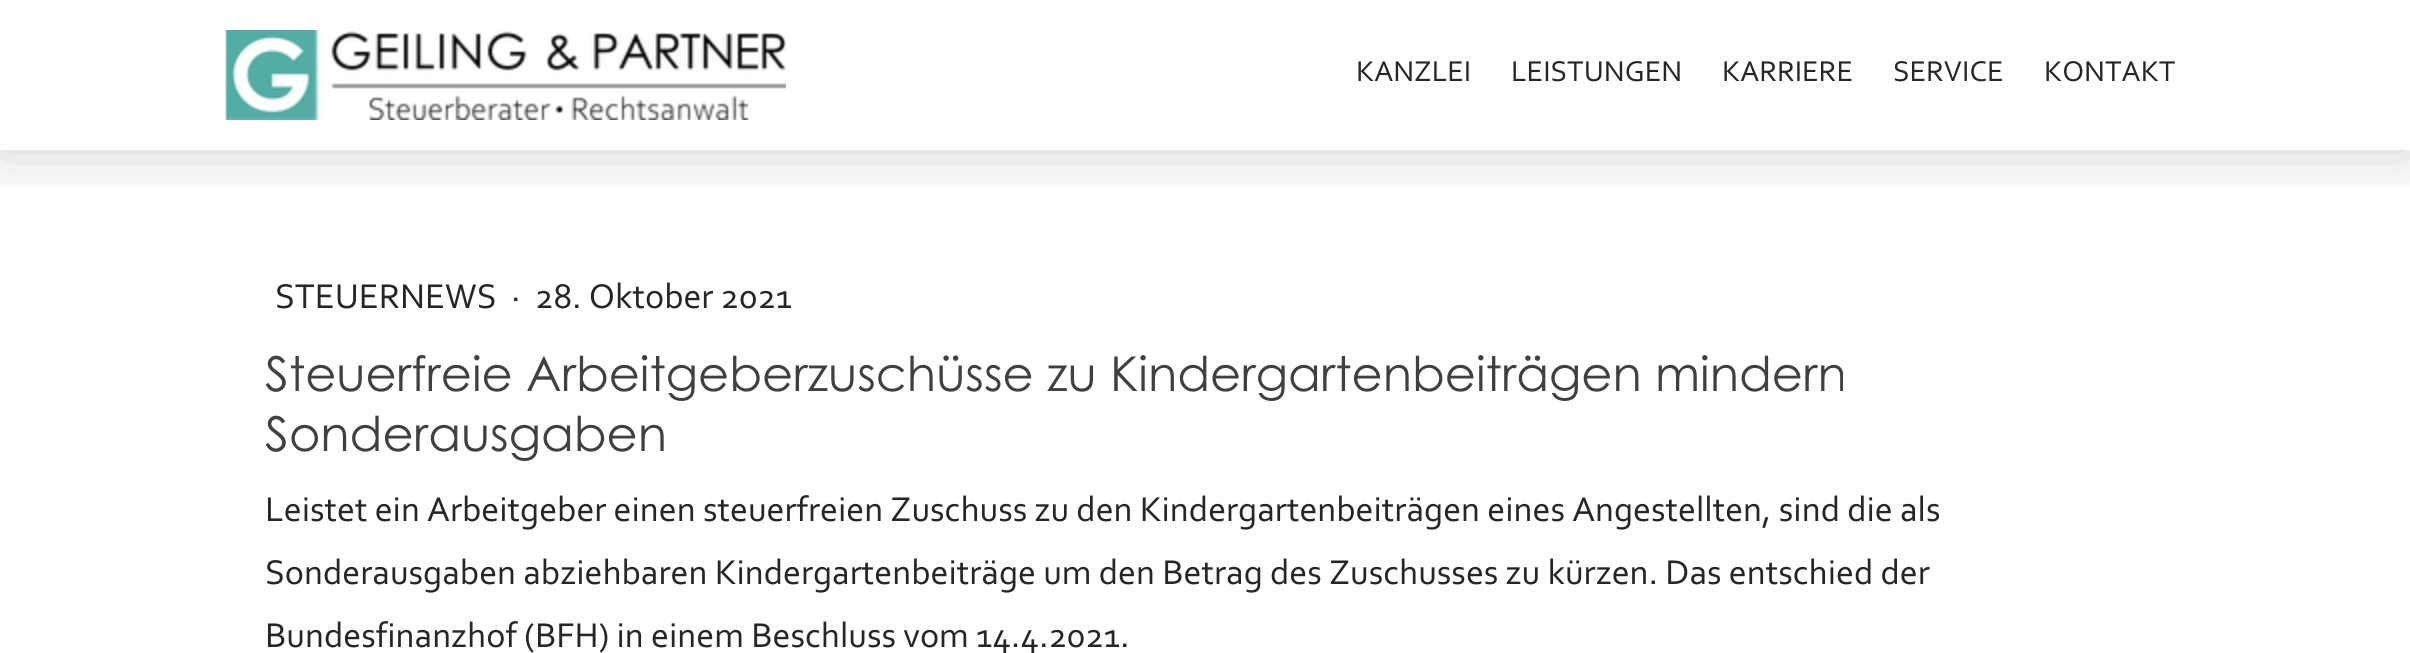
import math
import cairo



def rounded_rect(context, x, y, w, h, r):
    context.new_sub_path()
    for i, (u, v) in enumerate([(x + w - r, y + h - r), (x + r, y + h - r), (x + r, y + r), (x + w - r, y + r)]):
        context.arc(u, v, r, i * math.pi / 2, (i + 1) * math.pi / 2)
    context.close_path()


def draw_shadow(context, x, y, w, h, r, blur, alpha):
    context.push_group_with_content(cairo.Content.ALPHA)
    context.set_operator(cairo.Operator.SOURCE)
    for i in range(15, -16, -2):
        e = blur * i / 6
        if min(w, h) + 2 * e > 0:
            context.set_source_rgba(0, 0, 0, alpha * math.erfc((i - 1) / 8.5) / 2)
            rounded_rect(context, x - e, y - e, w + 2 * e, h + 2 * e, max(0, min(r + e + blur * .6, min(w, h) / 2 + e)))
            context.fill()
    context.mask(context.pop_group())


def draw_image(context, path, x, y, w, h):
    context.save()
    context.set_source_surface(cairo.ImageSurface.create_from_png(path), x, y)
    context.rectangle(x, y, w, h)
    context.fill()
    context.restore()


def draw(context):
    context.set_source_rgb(1, 1, 1)
    context.paint()
    context.save()
    context.rectangle(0, 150, 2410, 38)
    context.clip()
    context.set_source_rgb(0, 0, 0)
    draw_shadow(context, 0, 0, 2410, 150, 0, 30, 0.2)
    context.restore()
    draw_image(context, "images/1.png", 225, 30, 561, 90)
    context.select_font_face("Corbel")
    context.set_font_size(30)
    context.set_source_rgb(38 / 255, 38 / 255, 38 / 255)
    context.move_to(1356, 81)
    context.show_text("KANZLEI")
    context.move_to(1511, 81)
    context.show_text("LEISTUNGEN")
    context.move_to(1722, 81)
    context.show_text("KARRIERE")
    context.move_to(1893, 81)
    context.show_text("SERVICE")
    context.move_to(2044, 81)
    context.show_text("KONTAKT")
    context.set_font_size(36)
    context.move_to(275, 308)
    context.show_text("STEUERNEWS")
    context.move_to(511, 308)
    context.show_text("·")
    context.move_to(535, 308)
    context.show_text("28. Oktober 2021")
    context.select_font_face("Century Gothic")
    context.set_font_size(48)
    context.set_source_rgb(64 / 255, 64 / 255, 64 / 255)
    context.move_to(265, 391)
    context.show_text("Steuerfreie Arbeitgeberzuschüsse zu Kindergartenbeiträgen mindern")
    context.move_to(265, 451)
    context.show_text("Sonderausgaben")
    context.select_font_face("Corbel")
    context.set_font_size(36)
    context.set_source_rgb(38 / 255, 38 / 255, 38 / 255)
    context.move_to(265, 521)
    context.show_text("Leistet ein Arbeitgeber einen steuerfreien Zuschuss zu den Kindergartenbeiträgen eines Angestellten, sind die als")
    context.move_to(265, 584)
    context.show_text("Sonderausgaben abziehbaren Kindergartenbeiträge um den Betrag des Zuschusses zu kürzen. Das entschied der")
    context.move_to(265, 647)
    context.show_text("Bundesfinanzhof (BFH) in einem Beschluss vom 14.4.2021.")


surface = cairo.ImageSurface(cairo.Format.RGB24, 2410, 653)
context = cairo.Context(surface)
options = cairo.FontOptions()
options.set_hint_metrics(cairo.HintMetrics.OFF)
options.set_hint_style(cairo.HintStyle.NONE)
context.set_font_options(options)
context.set_miter_limit(4)
draw(context)
surface.write_to_png("out.png")
